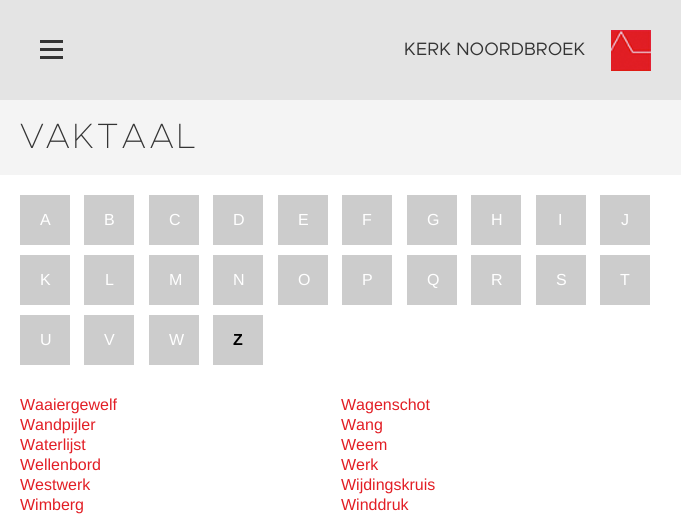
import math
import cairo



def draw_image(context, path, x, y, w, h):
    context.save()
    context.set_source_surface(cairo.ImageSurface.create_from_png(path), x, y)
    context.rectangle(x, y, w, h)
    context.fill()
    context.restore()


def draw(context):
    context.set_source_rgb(1, 1, 1)
    context.paint()
    context.set_source_rgb(228 / 255, 228 / 255, 228 / 255)
    context.rectangle(0, 0, 681, 100)
    context.fill()
    context.set_source_rgb(52 / 255, 52 / 255, 52 / 255)
    context.rectangle(40, 40, 23, 3)
    context.fill()
    context.rectangle(40, 48, 23, 3)
    context.fill()
    context.rectangle(40, 56, 23, 3)
    context.fill()
    draw_image(context, "images/1.png", 611, 30, 40, 41)
    context.set_source_rgb(244 / 255, 244 / 255, 244 / 255)
    context.rectangle(0, 100, 681, 75)
    context.fill()
    context.set_source_rgb(204 / 255, 204 / 255, 204 / 255)
    context.rectangle(20, 195, 50, 50)
    context.fill()
    context.rectangle(84, 195, 50, 50)
    context.fill()
    context.rectangle(149, 195, 50, 50)
    context.fill()
    context.rectangle(213, 195, 50, 50)
    context.fill()
    context.rectangle(278, 195, 50, 50)
    context.fill()
    context.rectangle(342, 195, 50, 50)
    context.fill()
    context.rectangle(407, 195, 50, 50)
    context.fill()
    context.rectangle(471, 195, 50, 50)
    context.fill()
    context.rectangle(536, 195, 50, 50)
    context.fill()
    context.rectangle(600, 195, 50, 50)
    context.fill()
    context.rectangle(20, 255, 50, 50)
    context.fill()
    context.rectangle(84, 255, 50, 50)
    context.fill()
    context.rectangle(149, 255, 50, 50)
    context.fill()
    context.rectangle(213, 255, 50, 50)
    context.fill()
    context.rectangle(278, 255, 50, 50)
    context.fill()
    context.rectangle(342, 255, 50, 50)
    context.fill()
    context.rectangle(407, 255, 50, 50)
    context.fill()
    context.rectangle(471, 255, 50, 50)
    context.fill()
    context.rectangle(536, 255, 50, 50)
    context.fill()
    context.rectangle(600, 255, 50, 50)
    context.fill()
    context.rectangle(20, 315, 50, 50)
    context.fill()
    context.rectangle(84, 315, 50, 50)
    context.fill()
    context.rectangle(149, 315, 50, 50)
    context.fill()
    context.rectangle(213, 315, 50, 50)
    context.fill()
    context.select_font_face("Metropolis")
    context.set_font_size(18)
    context.set_source_rgb(52 / 255, 52 / 255, 52 / 255)
    context.move_to(404, 55)
    context.show_text("KERK NOORDBROEK")
    context.select_font_face("Metropolis Thin")
    context.set_font_size(35.25)
    context.move_to(20, 148)
    context.show_text("VAKTAAL")
    context.select_font_face("Liberation Sans")
    context.set_font_size(16)
    context.set_source_rgb(1, 1, 1)
    context.move_to(40, 225)
    context.show_text("A")
    context.move_to(104, 225)
    context.show_text("B")
    context.move_to(169, 225)
    context.show_text("C")
    context.move_to(233, 225)
    context.show_text("D")
    context.move_to(298, 225)
    context.show_text("E")
    context.move_to(362, 225)
    context.show_text("F")
    context.move_to(427, 225)
    context.show_text("G")
    context.move_to(491, 225)
    context.show_text("H")
    context.move_to(558, 225)
    context.show_text("I")
    context.move_to(621, 225)
    context.show_text("J")
    context.move_to(40, 285)
    context.show_text("K")
    context.move_to(105, 285)
    context.show_text("L")
    context.move_to(169, 285)
    context.show_text("M")
    context.move_to(233, 285)
    context.show_text("N")
    context.move_to(298, 285)
    context.show_text("O")
    context.move_to(362, 285)
    context.show_text("P")
    context.move_to(427, 285)
    context.show_text("Q")
    context.move_to(491, 285)
    context.show_text("R")
    context.move_to(556, 285)
    context.show_text("S")
    context.move_to(620, 285)
    context.show_text("T")
    context.move_to(40, 345)
    context.show_text("U")
    context.move_to(104, 345)
    context.show_text("V")
    context.move_to(169, 345)
    context.show_text("W")
    context.select_font_face("Liberation Sans", cairo.FontSlant.NORMAL, cairo.FontWeight.BOLD)
    context.set_source_rgb(0, 0, 0)
    context.move_to(233, 345)
    context.show_text("Z")
    context.select_font_face("Liberation Sans")
    context.set_source_rgb(226 / 255, 30 / 255, 37 / 255)
    context.move_to(20, 410)
    context.show_text("Waaiergewelf")
    context.move_to(341, 410)
    context.show_text("Wagenschot")
    context.move_to(20, 430)
    context.show_text("Wandpijler")
    context.move_to(341, 430)
    context.show_text("Wang")
    context.move_to(20, 450)
    context.show_text("Waterlijst")
    context.move_to(341, 450)
    context.show_text("Weem")
    context.move_to(20, 470)
    context.show_text("Wellenbord")
    context.move_to(341, 470)
    context.show_text("Werk")
    context.move_to(20, 490)
    context.show_text("Westwerk")
    context.move_to(341, 490)
    context.show_text("Wijdingskruis")
    context.move_to(20, 510)
    context.show_text("Wimberg")
    context.move_to(341, 510)
    context.show_text("Winddruk")


surface = cairo.ImageSurface(cairo.Format.RGB24, 681, 525)
context = cairo.Context(surface)
options = cairo.FontOptions()
options.set_hint_metrics(cairo.HintMetrics.OFF)
options.set_hint_style(cairo.HintStyle.NONE)
context.set_font_options(options)
context.set_miter_limit(4)
draw(context)
surface.write_to_png("out.png")
